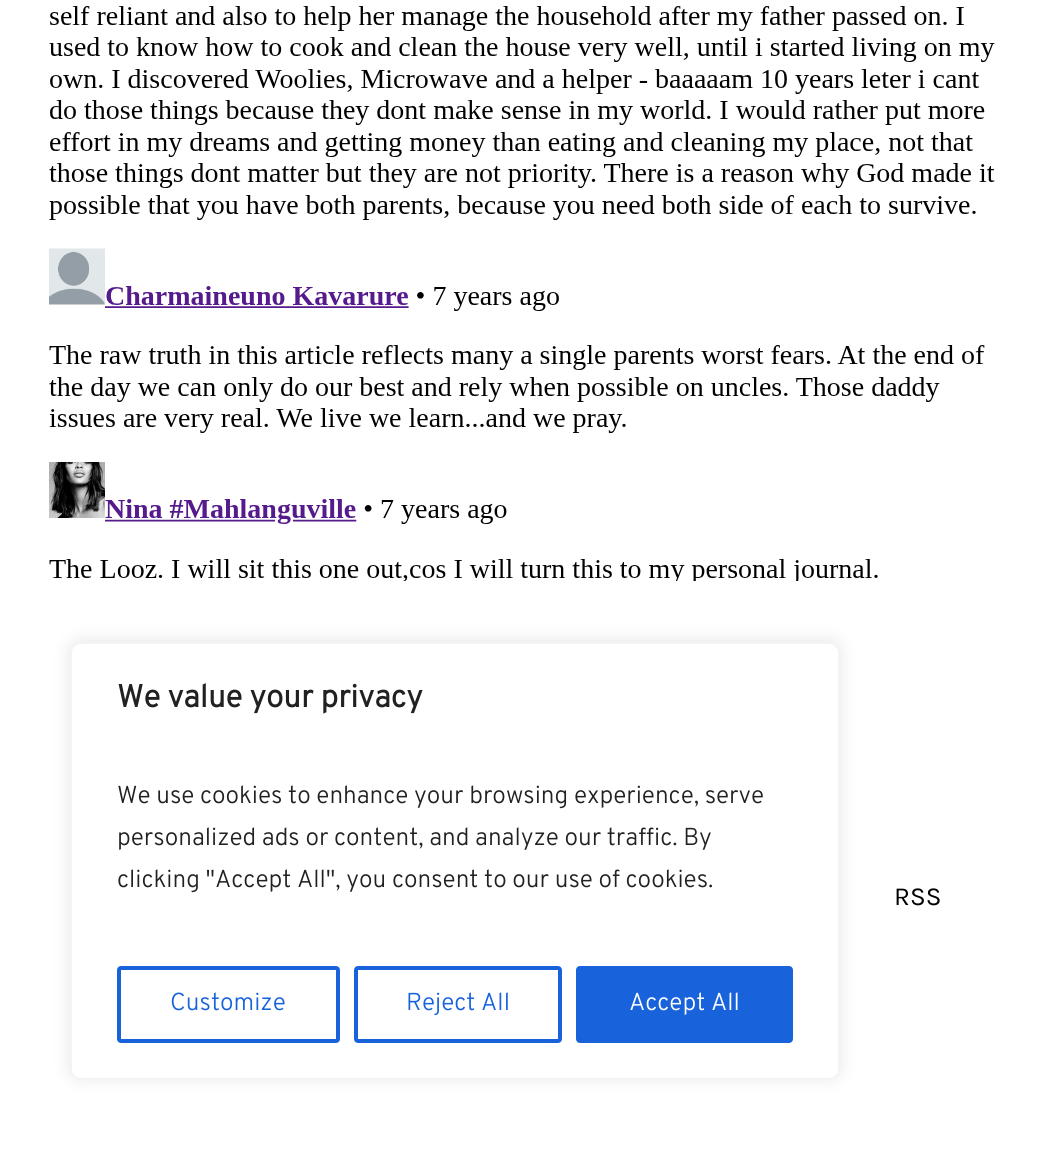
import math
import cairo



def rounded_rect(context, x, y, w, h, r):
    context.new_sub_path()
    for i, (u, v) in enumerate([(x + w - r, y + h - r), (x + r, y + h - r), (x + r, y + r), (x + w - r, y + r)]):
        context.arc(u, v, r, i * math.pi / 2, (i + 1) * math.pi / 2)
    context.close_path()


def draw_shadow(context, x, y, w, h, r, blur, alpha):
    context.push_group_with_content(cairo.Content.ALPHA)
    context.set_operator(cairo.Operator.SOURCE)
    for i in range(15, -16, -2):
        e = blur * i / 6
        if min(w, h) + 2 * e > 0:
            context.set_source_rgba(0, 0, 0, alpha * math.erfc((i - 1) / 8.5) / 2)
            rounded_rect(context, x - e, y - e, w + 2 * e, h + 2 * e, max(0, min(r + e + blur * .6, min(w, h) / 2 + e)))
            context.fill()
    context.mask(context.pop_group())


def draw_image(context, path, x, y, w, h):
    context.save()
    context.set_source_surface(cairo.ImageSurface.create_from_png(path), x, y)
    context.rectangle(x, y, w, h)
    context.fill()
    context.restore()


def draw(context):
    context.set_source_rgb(1, 1, 1)
    context.paint()
    context.set_source_rgb(172 / 255, 171 / 255, 171 / 255)
    draw_shadow(context, 70, 641, 770, 437, 11, 9, 0.3)
    context.set_source_rgb(1, 1, 1)
    rounded_rect(context, 71, 643, 768, 436, 10)
    context.fill_preserve()
    context.set_source_rgb(244 / 255, 244 / 255, 244 / 255)
    context.stroke()
    rounded_rect(context, 119, 968, 219, 73, 2)
    context.set_source_rgb(24 / 255, 99 / 255, 220 / 255)
    context.set_line_width(4)
    context.stroke()
    rounded_rect(context, 356, 968, 204, 73, 2)
    context.stroke()
    rounded_rect(context, 578, 968, 213, 73, 2)
    context.fill_preserve()
    context.stroke()
    draw_image(context, "images/1.png", 49, 6, 946, 575)
    context.select_font_face("Overpass", cairo.FontSlant.NORMAL, cairo.FontWeight.BOLD)
    context.set_font_size(31.5)
    context.set_source_rgb(33 / 255, 33 / 255, 33 / 255)
    context.move_to(117, 707)
    context.show_text("We value your privacy")
    context.select_font_face("Overpass Light")
    context.set_font_size(24.5)
    context.move_to(117, 803)
    context.show_text("We use cookies to enhance your browsing experience, serve")
    context.move_to(117, 845)
    context.show_text("personalized ads or content, and analyze our traffic. By")
    context.move_to(117, 887)
    context.show_text("clicking \"Accept All\", you consent to our use of cookies.")
    context.set_source_rgb(24 / 255, 99 / 255, 220 / 255)
    context.move_to(170, 1010)
    context.show_text("Customize")
    context.move_to(406, 1010)
    context.show_text("Reject All")
    context.set_source_rgb(1, 1, 1)
    context.move_to(629, 1010)
    context.show_text("Accept All")
    context.select_font_face("Karla")
    context.set_font_size(26)
    context.set_source_rgb(0, 0, 0)
    context.move_to(894, 905)
    context.show_text("RSS")


surface = cairo.ImageSurface(cairo.Format.RGB24, 1045, 1149)
context = cairo.Context(surface)
options = cairo.FontOptions()
options.set_hint_metrics(cairo.HintMetrics.OFF)
options.set_hint_style(cairo.HintStyle.NONE)
context.set_font_options(options)
context.set_miter_limit(4)
draw(context)
surface.write_to_png("out.png")
